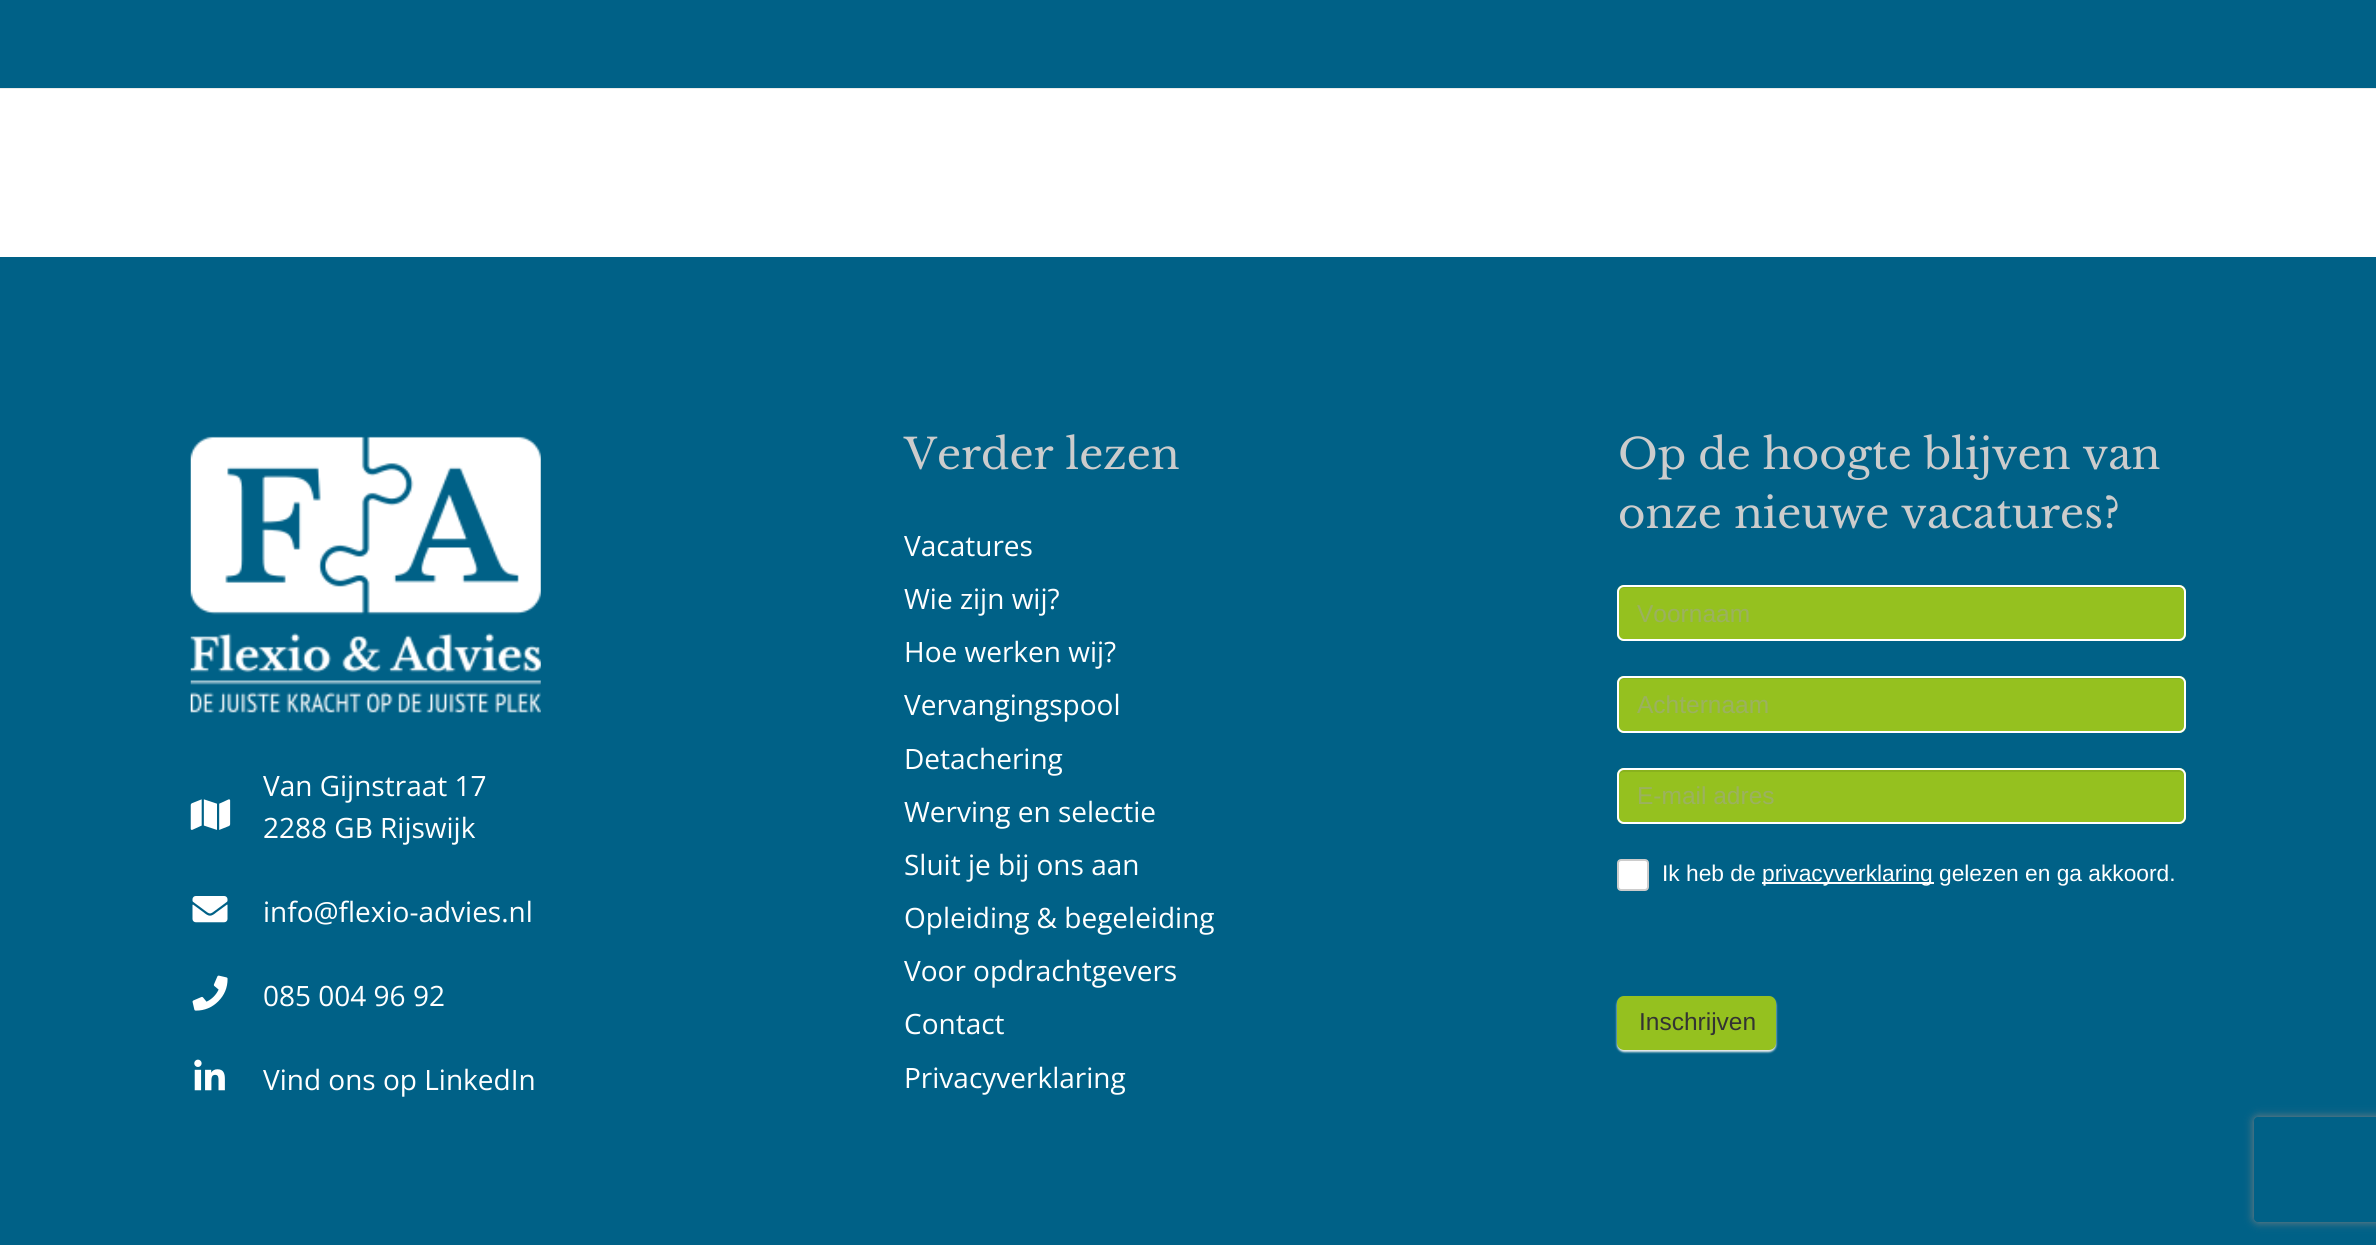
import math
import cairo



def rounded_rect(context, x, y, w, h, r):
    context.new_sub_path()
    for i, (u, v) in enumerate([(x + w - r, y + h - r), (x + r, y + h - r), (x + r, y + r), (x + w - r, y + r)]):
        context.arc(u, v, r, i * math.pi / 2, (i + 1) * math.pi / 2)
    context.close_path()


def draw_shadow(context, x, y, w, h, r, blur, alpha):
    context.push_group_with_content(cairo.Content.ALPHA)
    context.set_operator(cairo.Operator.SOURCE)
    for i in range(15, -16, -2):
        e = blur * i / 6
        if min(w, h) + 2 * e > 0:
            context.set_source_rgba(0, 0, 0, alpha * math.erfc((i - 1) / 8.5) / 2)
            rounded_rect(context, x - e, y - e, w + 2 * e, h + 2 * e, max(0, min(r + e + blur * .6, min(w, h) / 2 + e)))
            context.fill()
    context.mask(context.pop_group())


def draw_image(context, path, x, y, w, h):
    context.save()
    context.set_source_surface(cairo.ImageSurface.create_from_png(path), x, y)
    context.rectangle(x, y, w, h)
    context.fill()
    context.restore()


def draw(context):
    context.set_source_rgb(1, 1, 1)
    context.paint()
    context.set_source_rgb(235 / 255, 235 / 255, 235 / 255)
    context.new_path()
    context.move_to(0, 88)
    context.line_to(0, 89)
    context.line_to(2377, 89)
    context.line_to(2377, 2)
    context.line_to(2376, 2)
    context.line_to(2376, 88)
    context.close_path()
    context.fill()
    context.set_source_rgb(0, 97 / 255, 135 / 255)
    context.rectangle(0, 0, 2376, 88)
    context.fill()
    context.rectangle(0, 257, 2376, 988)
    context.fill()
    draw_image(context, "images/1.png", 190, 436, 351, 277)
    draw_image(context, "images/2.png", 190, 799, 41, 31)
    draw_image(context, "images/3.png", 192, 896, 36, 27)
    draw_image(context, "images/4.png", 192, 975, 36, 36)
    draw_image(context, "images/5.png", 194, 1059, 31, 32)
    context.set_source_rgb(149 / 255, 193 / 255, 31 / 255)
    rounded_rect(context, 1617, 585, 569, 56, 7)
    context.fill()
    context.set_source_rgb(137 / 255, 178 / 255, 29 / 255)
    context.new_path()
    context.move_to(1624, 588)
    context.line_to(2179, 588)
    context.curve_to(2182, 588, 2184, 590, 2184, 593)
    context.line_to(2184, 591)
    context.curve_to(2184, 588, 2182, 586, 2179, 586)
    context.line_to(1624, 586)
    context.curve_to(1621, 586, 1619, 588, 1619, 591)
    context.line_to(1619, 593)
    context.curve_to(1619, 590, 1621, 588, 1624, 588)
    context.close_path()
    context.fill()
    rounded_rect(context, 1618, 586, 567, 54, 6)
    context.set_source_rgb(1, 1, 1)
    context.stroke()
    context.set_source_rgb(149 / 255, 193 / 255, 31 / 255)
    rounded_rect(context, 1617, 676, 569, 57, 7)
    context.fill()
    context.set_source_rgb(137 / 255, 178 / 255, 29 / 255)
    context.new_path()
    context.move_to(1624, 679)
    context.line_to(2179, 679)
    context.curve_to(2182, 679, 2184, 681, 2184, 684)
    context.line_to(2184, 682)
    context.curve_to(2184, 679, 2182, 677, 2179, 677)
    context.line_to(1624, 677)
    context.curve_to(1621, 677, 1619, 679, 1619, 682)
    context.line_to(1619, 684)
    context.curve_to(1619, 681, 1621, 679, 1624, 679)
    context.close_path()
    context.fill()
    rounded_rect(context, 1618, 677, 567, 55, 6)
    context.set_source_rgb(1, 1, 1)
    context.stroke()
    context.set_source_rgb(149 / 255, 193 / 255, 31 / 255)
    rounded_rect(context, 1617, 768, 569, 56, 7)
    context.fill()
    context.set_source_rgb(137 / 255, 178 / 255, 29 / 255)
    context.new_path()
    context.move_to(1624, 772)
    context.line_to(2179, 772)
    context.curve_to(2182, 772, 2184, 774, 2184, 777)
    context.line_to(2184, 775)
    context.curve_to(2184, 772, 2182, 770, 2179, 770)
    context.line_to(1624, 770)
    context.curve_to(1621, 770, 1619, 772, 1619, 775)
    context.line_to(1619, 777)
    context.curve_to(1619, 774, 1621, 772, 1624, 772)
    context.close_path()
    context.fill()
    rounded_rect(context, 1618, 769, 567, 54, 6)
    context.set_source_rgb(1, 1, 1)
    context.stroke()
    rounded_rect(context, 1618, 860, 30, 30, 3)
    context.fill_preserve()
    context.set_source_rgb(204 / 255, 204 / 255, 204 / 255)
    context.stroke()
    context.set_source_rgb(1, 1, 1)
    context.rectangle(1762, 882, 172, 2)
    context.fill()
    context.set_source_rgb(238 / 255, 238 / 255, 238 / 255)
    draw_shadow(context, 1617, 998, 159, 54, 7, 1, 1)
    context.set_source_rgb(149 / 255, 193 / 255, 31 / 255)
    rounded_rect(context, 1618, 997, 157, 52, 6)
    context.fill_preserve()
    context.stroke()
    context.save()
    context.set_fill_rule(cairo.FillRule.EVEN_ODD)
    context.new_path()
    context.move_to(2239, 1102)
    context.line_to(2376, 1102)
    context.line_to(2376, 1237)
    context.line_to(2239, 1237)
    context.close_path()
    context.move_to(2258, 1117)
    context.line_to(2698, 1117)
    context.curve_to(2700, 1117, 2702, 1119, 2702, 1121)
    context.line_to(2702, 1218)
    context.curve_to(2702, 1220, 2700, 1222, 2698, 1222)
    context.line_to(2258, 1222)
    context.curve_to(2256, 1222, 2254, 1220, 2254, 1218)
    context.line_to(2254, 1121)
    context.curve_to(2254, 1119, 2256, 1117, 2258, 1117)
    context.close_path()
    context.clip()
    context.set_source_rgb(128 / 255, 128 / 255, 128 / 255)
    draw_shadow(context, 2254, 1117, 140, 105, 4, 4.5, 1)
    context.restore()
    context.select_font_face("Open Sans")
    context.set_font_size(28)
    context.set_source_rgb(1, 1, 1)
    context.move_to(263, 796)
    context.show_text("Van Gijnstraat 17")
    context.move_to(263, 838)
    context.show_text("2288 GB Rijswijk")
    context.move_to(263, 922)
    context.show_text("info@flexio-advies.nl")
    context.move_to(263, 1006)
    context.show_text("085 004 96 92")
    context.move_to(263, 1090)
    context.show_text("Vind ons op LinkedIn")
    context.select_font_face("Libre Baskerville")
    context.set_font_size(42)
    context.set_source_rgb(204 / 255, 204 / 255, 204 / 255)
    context.move_to(904, 469)
    context.show_text("Verder lezen")
    context.select_font_face("Open Sans")
    context.set_font_size(28)
    context.set_source_rgb(1, 1, 1)
    context.move_to(904, 556)
    context.show_text("Vacatures")
    context.move_to(904, 609)
    context.show_text("Wie zijn wij?")
    context.move_to(904, 662)
    context.show_text("Hoe werken wij?")
    context.move_to(904, 715)
    context.show_text("Vervangingspool")
    context.move_to(904, 769)
    context.show_text("Detachering")
    context.move_to(904, 822)
    context.show_text("Werving en selectie")
    context.move_to(904, 875)
    context.show_text("Sluit je bij ons aan")
    context.move_to(904, 928)
    context.show_text("Opleiding & begeleiding")
    context.move_to(904, 981)
    context.show_text("Voor opdrachtgevers")
    context.move_to(904, 1034)
    context.show_text("Contact")
    context.move_to(904, 1088)
    context.show_text("Privacyverklaring")
    context.select_font_face("Libre Baskerville")
    context.set_font_size(42)
    context.set_source_rgb(204 / 255, 204 / 255, 204 / 255)
    context.move_to(1618, 469)
    context.show_text("Op de hoogte blijven van")
    context.move_to(1618, 528)
    context.show_text("onze nieuwe vacatures?")
    context.select_font_face("Liberation Sans")
    context.set_font_size(24.5)
    context.set_source_rgb(155 / 255, 177 / 255, 96 / 255)
    context.move_to(1637, 622)
    context.show_text("Voornaam")
    context.move_to(1637, 713)
    context.show_text("Achternaam")
    context.move_to(1637, 804)
    context.show_text("E-mail adres")
    context.set_font_size(22.75)
    context.set_source_rgb(1, 1, 1)
    context.move_to(1662, 881)
    context.show_text("Ik heb de")
    context.move_to(1762, 881)
    context.show_text("privacyverklaring gelezen en ga akkoord.")
    context.set_font_size(24.5)
    context.set_source_rgb(51 / 255, 51 / 255, 51 / 255)
    context.move_to(1639, 1030)
    context.show_text("Inschrijven")


surface = cairo.ImageSurface(cairo.Format.RGB24, 2376, 1245)
context = cairo.Context(surface)
options = cairo.FontOptions()
options.set_hint_metrics(cairo.HintMetrics.OFF)
options.set_hint_style(cairo.HintStyle.NONE)
context.set_font_options(options)
context.set_miter_limit(4)
draw(context)
surface.write_to_png("out.png")
